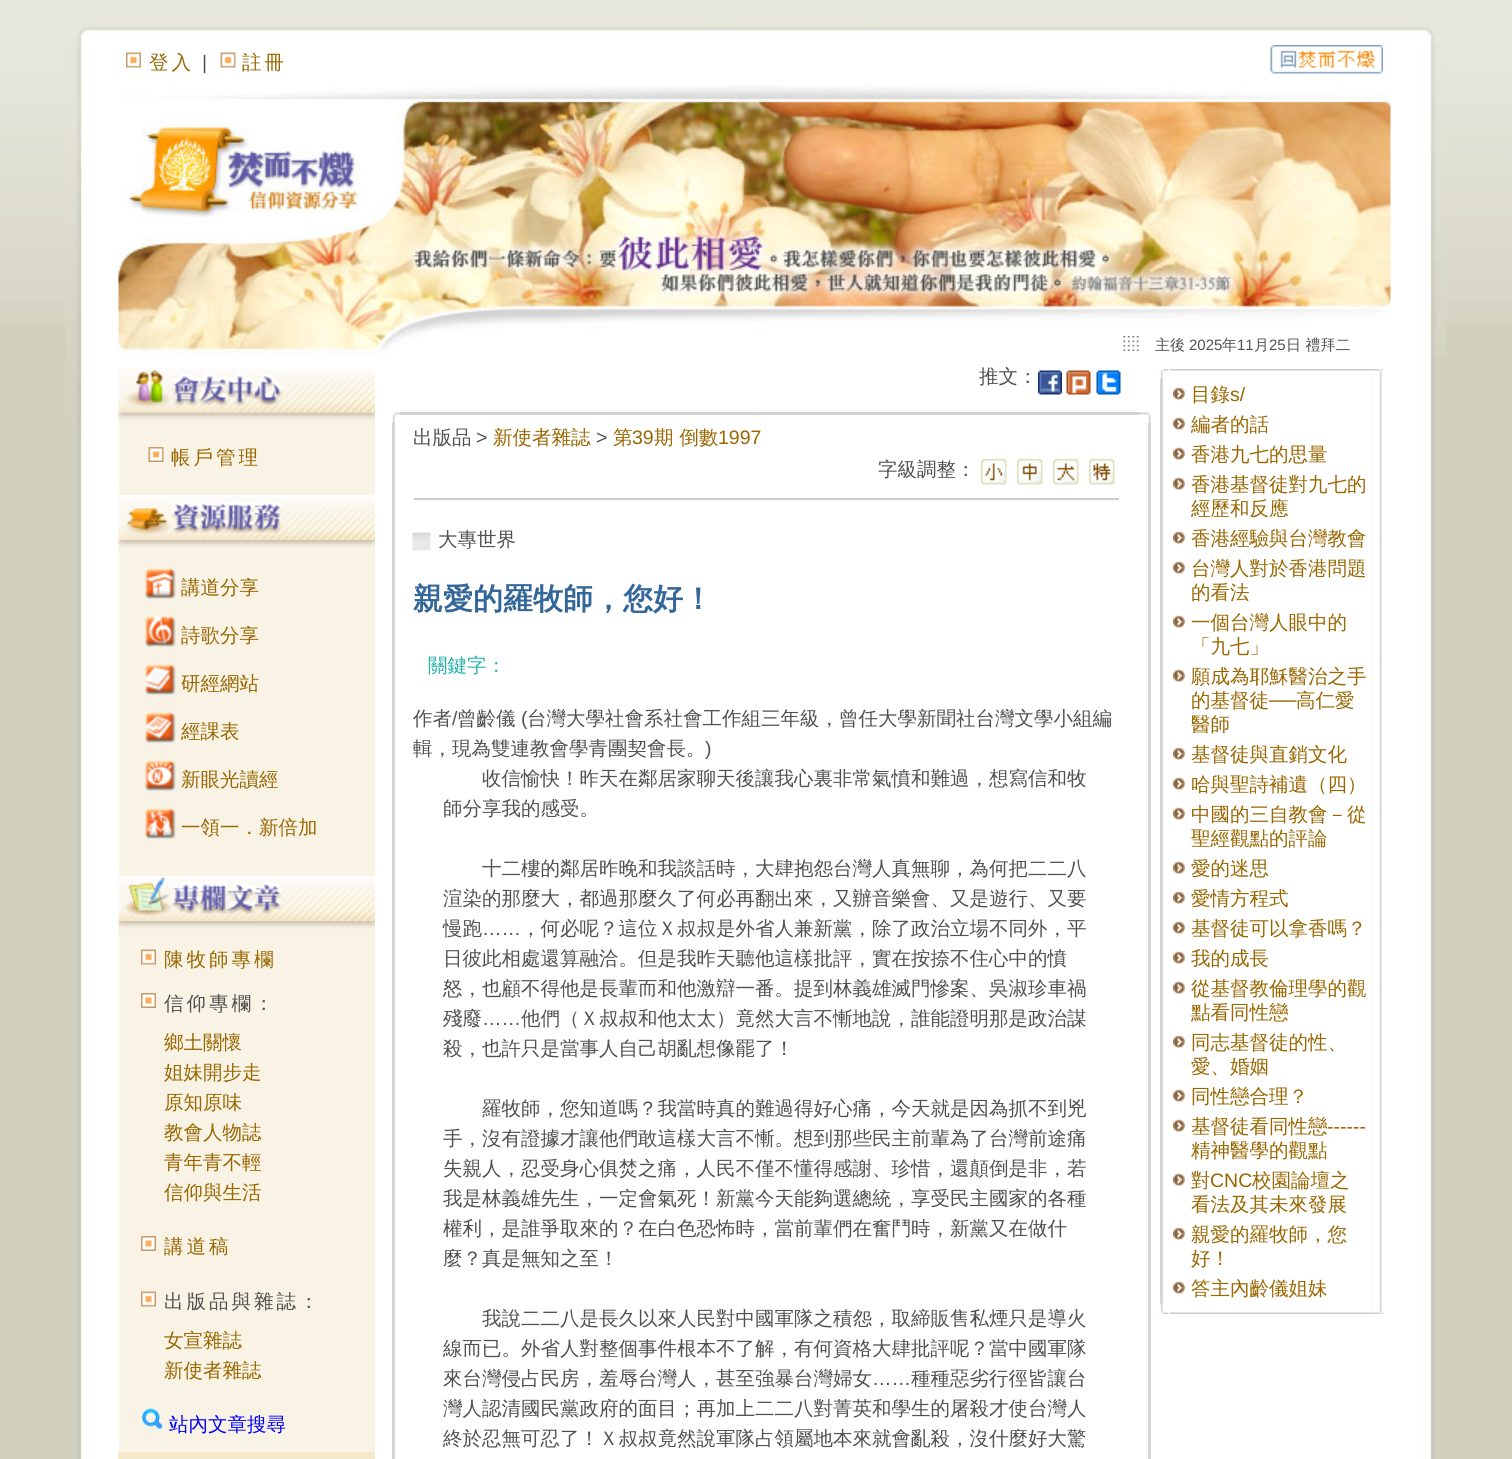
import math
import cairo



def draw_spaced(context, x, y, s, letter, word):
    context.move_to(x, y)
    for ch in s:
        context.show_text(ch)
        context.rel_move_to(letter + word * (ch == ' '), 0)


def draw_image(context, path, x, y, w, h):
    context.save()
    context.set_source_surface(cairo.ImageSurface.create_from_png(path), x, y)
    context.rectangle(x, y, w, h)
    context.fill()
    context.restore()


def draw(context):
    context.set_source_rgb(210 / 255, 209 / 255, 191 / 255)
    context.paint()
    draw_image(context, "images/1.png", 0, 0, 1512, 323)
    draw_image(context, "images/2.png", 66, 26, 1369, 19)
    draw_image(context, "images/3.png", 66, 45, 30, 1414)
    draw_image(context, "images/4.png", 66, 45, 18, 390)
    context.set_source_rgb(1, 1, 1)
    context.rectangle(96, 45, 1320, 1414)
    context.fill()
    draw_image(context, "images/5.png", 126, 52, 15, 16)
    draw_image(context, "images/6.png", 220, 52, 16, 16)
    draw_image(context, "images/7.png", 1270, 45, 113, 29)
    draw_image(context, "images/8.png", 118, 85, 1273, 271)
    draw_image(context, "images/9.png", 1123, 336, 16, 15)
    draw_image(context, "images/10.png", 118, 368, 257, 45)
    context.set_source_rgb(249 / 255, 243 / 255, 229 / 255)
    context.rectangle(119, 427, 256, 68)
    context.fill()
    draw_image(context, "images/11.png", 118, 412, 257, 16)
    draw_image(context, "images/12.png", 148, 447, 16, 15)
    draw_image(context, "images/13.png", 118, 496, 257, 44)
    context.rectangle(119, 555, 256, 321)
    context.fill()
    draw_image(context, "images/14.png", 118, 540, 257, 15)
    draw_image(context, "images/15.png", 145, 568, 31, 31)
    draw_image(context, "images/16.png", 145, 616, 31, 31)
    draw_image(context, "images/17.png", 145, 664, 31, 31)
    draw_image(context, "images/18.png", 145, 712, 31, 31)
    draw_image(context, "images/19.png", 145, 760, 31, 31)
    draw_image(context, "images/20.png", 145, 808, 31, 31)
    draw_image(context, "images/21.png", 118, 877, 257, 44)
    context.rectangle(119, 936, 256, 516)
    context.fill()
    draw_image(context, "images/14.png", 118, 921, 257, 15)
    draw_image(context, "images/22.png", 141, 949, 15, 16)
    draw_image(context, "images/23.png", 141, 993, 15, 15)
    draw_image(context, "images/23.png", 141, 1236, 15, 15)
    draw_image(context, "images/22.png", 141, 1291, 15, 16)
    draw_image(context, "images/24.png", 142, 1408, 21, 22)
    context.set_source_rgb(244 / 255, 233 / 255, 200 / 255)
    context.rectangle(118, 1452, 257, 7)
    context.fill()
    draw_image(context, "images/25.png", 1038, 370, 24, 25)
    draw_image(context, "images/26.png", 1066, 370, 25, 25)
    draw_image(context, "images/27.png", 1096, 370, 25, 25)
    draw_image(context, "images/28.png", 392, 412, 9, 11)
    context.set_source_rgb(210 / 255, 210 / 255, 210 / 255)
    context.rectangle(400, 412, 740, 3)
    context.fill()
    draw_image(context, "images/29.png", 1140, 412, 11, 11)
    context.set_source_rgb(213 / 255, 213 / 255, 213 / 255)
    context.rectangle(392, 423, 3, 1036)
    context.fill()
    draw_image(context, "images/30.png", 981, 459, 26, 26)
    draw_image(context, "images/31.png", 1017, 459, 26, 26)
    draw_image(context, "images/32.png", 1053, 459, 26, 26)
    draw_image(context, "images/33.png", 1089, 459, 26, 26)
    context.set_source_rgb(204 / 255, 204 / 255, 204 / 255)
    context.rectangle(414, 498, 705, 2)
    context.fill()
    draw_image(context, "images/34.png", 412, 532, 19, 19)
    context.set_source_rgb(213 / 255, 213 / 255, 213 / 255)
    context.rectangle(1148, 423, 3, 1036)
    context.fill()
    draw_image(context, "images/35.png", 1158, 369, 11, 11)
    draw_image(context, "images/36.png", 1170, 369, 201, 2)
    draw_image(context, "images/37.png", 1371, 369, 12, 11)
    context.rectangle(1160, 379, 3, 925)
    context.fill()
    draw_image(context, "images/38.png", 1173, 386, 12, 15)
    draw_image(context, "images/38.png", 1173, 416, 12, 15)
    draw_image(context, "images/38.png", 1173, 446, 12, 15)
    draw_image(context, "images/38.png", 1173, 476, 12, 15)
    draw_image(context, "images/38.png", 1173, 530, 12, 15)
    draw_image(context, "images/38.png", 1173, 560, 12, 15)
    draw_image(context, "images/38.png", 1173, 614, 12, 15)
    draw_image(context, "images/38.png", 1173, 668, 12, 15)
    draw_image(context, "images/38.png", 1173, 746, 12, 15)
    draw_image(context, "images/38.png", 1173, 776, 12, 15)
    draw_image(context, "images/38.png", 1173, 806, 12, 15)
    draw_image(context, "images/38.png", 1173, 860, 12, 15)
    draw_image(context, "images/38.png", 1173, 890, 12, 15)
    draw_image(context, "images/38.png", 1173, 920, 12, 15)
    draw_image(context, "images/38.png", 1173, 950, 12, 15)
    draw_image(context, "images/38.png", 1173, 980, 12, 15)
    draw_image(context, "images/38.png", 1173, 1034, 12, 15)
    draw_image(context, "images/38.png", 1173, 1088, 12, 15)
    draw_image(context, "images/38.png", 1173, 1118, 12, 15)
    draw_image(context, "images/38.png", 1173, 1172, 12, 15)
    draw_image(context, "images/38.png", 1173, 1226, 12, 15)
    draw_image(context, "images/38.png", 1173, 1280, 12, 15)
    draw_image(context, "images/39.png", 1371, 379, 11, 925)
    draw_image(context, "images/40.png", 1158, 1303, 11, 11)
    draw_image(context, "images/41.png", 1170, 1312, 201, 2)
    draw_image(context, "images/42.png", 1371, 1303, 12, 11)
    draw_image(context, "images/43.png", 1416, 45, 30, 1414)
    draw_image(context, "images/44.png", 1430, 45, 16, 312)
    context.select_font_face("WenQuanYi Zen Hei Medium")
    context.set_font_size(19.5)
    context.set_source_rgb(153 / 255, 102 / 255, 0)
    draw_spaced(context, 149, 69, "登入", 3, 0)
    context.select_font_face("Liberation Sans")
    context.set_source_rgb(80 / 255, 80 / 255, 80 / 255)
    context.move_to(202, 69)
    context.show_text("|")
    context.select_font_face("WenQuanYi Zen Hei Medium")
    context.set_source_rgb(153 / 255, 102 / 255, 0)
    draw_spaced(context, 242, 69, "註冊", 3, 0)
    context.set_font_size(15)
    context.set_source_rgb(80 / 255, 80 / 255, 80 / 255)
    context.move_to(1155, 350)
    context.show_text("主後")
    context.select_font_face("Liberation Sans")
    context.move_to(1189, 350)
    context.show_text("2025")
    context.select_font_face("WenQuanYi Zen Hei Medium")
    context.move_to(1222, 350)
    context.show_text("年")
    context.select_font_face("Liberation Sans")
    context.move_to(1237, 350)
    context.show_text("11")
    context.select_font_face("WenQuanYi Zen Hei Medium")
    context.move_to(1254, 350)
    context.show_text("月")
    context.select_font_face("Liberation Sans")
    context.move_to(1269, 350)
    context.show_text("25")
    context.select_font_face("WenQuanYi Zen Hei Medium")
    context.move_to(1286, 350)
    context.show_text("日 禮拜二")
    context.set_font_size(19.5)
    context.set_source_rgb(153 / 255, 102 / 255, 0)
    draw_spaced(context, 171, 464, "帳戶管理", 3, 0)
    context.move_to(181, 594)
    context.show_text("講道分享")
    context.move_to(181, 642)
    context.show_text("詩歌分享")
    context.move_to(181, 690)
    context.show_text("研經網站")
    context.move_to(181, 738)
    context.show_text("經課表")
    context.move_to(181, 786)
    context.show_text("新眼光讀經")
    context.move_to(181, 834)
    context.show_text("一領一．新倍加")
    draw_spaced(context, 164, 966, "陳牧師專欄", 3, 0)
    context.set_source_rgb(80 / 255, 80 / 255, 80 / 255)
    draw_spaced(context, 164, 1010, "信仰專欄：", 3, 0)
    context.set_source_rgb(153 / 255, 102 / 255, 0)
    context.move_to(164, 1049)
    context.show_text("鄉土關懷")
    context.move_to(164, 1079)
    context.show_text("姐妹開步走")
    context.move_to(164, 1109)
    context.show_text("原知原味")
    context.move_to(164, 1139)
    context.show_text("教會人物誌")
    context.move_to(164, 1169)
    context.show_text("青年青不輕")
    context.move_to(164, 1199)
    context.show_text("信仰與生活")
    draw_spaced(context, 164, 1253, "講道稿", 3, 0)
    context.set_source_rgb(80 / 255, 80 / 255, 80 / 255)
    draw_spaced(context, 164, 1308, "出版品與雜誌：", 3, 0)
    context.set_source_rgb(153 / 255, 102 / 255, 0)
    context.move_to(164, 1347)
    context.show_text("女宣雜誌")
    context.move_to(164, 1377)
    context.show_text("新使者雜誌")
    context.set_source_rgb(0, 0, 1)
    context.move_to(169, 1431)
    context.show_text("站內文章搜尋")
    context.set_source_rgb(80 / 255, 80 / 255, 80 / 255)
    context.move_to(979, 383)
    context.show_text("推文：")
    context.move_to(413, 444)
    context.show_text("出版品")
    context.select_font_face("Liberation Sans")
    context.move_to(476, 444)
    context.show_text(">")
    context.select_font_face("WenQuanYi Zen Hei Medium")
    context.set_source_rgb(153 / 255, 102 / 255, 0)
    context.move_to(493, 444)
    context.show_text("新使者雜誌")
    context.select_font_face("Liberation Sans")
    context.set_source_rgb(80 / 255, 80 / 255, 80 / 255)
    context.move_to(596, 444)
    context.show_text(">")
    context.select_font_face("WenQuanYi Zen Hei Medium")
    context.set_source_rgb(153 / 255, 102 / 255, 0)
    context.move_to(613, 444)
    context.show_text("第")
    context.select_font_face("Liberation Sans")
    context.move_to(632, 444)
    context.show_text("39")
    context.select_font_face("WenQuanYi Zen Hei Medium")
    context.move_to(654, 444)
    context.show_text("期 倒數")
    context.select_font_face("Liberation Sans")
    context.move_to(718, 444)
    context.show_text("1997")
    context.select_font_face("WenQuanYi Zen Hei Medium")
    context.set_source_rgb(80 / 255, 80 / 255, 80 / 255)
    context.move_to(878, 476)
    context.show_text("字級調整：")
    context.move_to(438, 546)
    context.show_text("大專世界")
    context.select_font_face("WenQuanYi Zen Hei", cairo.FontSlant.NORMAL, cairo.FontWeight.BOLD)
    context.set_font_size(30)
    context.set_source_rgb(51 / 255, 102 / 255, 153 / 255)
    context.move_to(413, 609)
    context.show_text("親愛的羅牧師，您好！")
    context.select_font_face("WenQuanYi Zen Hei Medium")
    context.set_font_size(19.5)
    context.set_source_rgb(37 / 255, 178 / 255, 169 / 255)
    context.move_to(428, 672)
    context.show_text("關鍵字：")
    context.set_source_rgb(80 / 255, 80 / 255, 80 / 255)
    context.move_to(413, 725)
    context.show_text("作者")
    context.select_font_face("Liberation Sans")
    context.move_to(452, 725)
    context.show_text("/")
    context.select_font_face("WenQuanYi Zen Hei Medium")
    context.move_to(457, 725)
    context.show_text("曾齡儀")
    context.select_font_face("Liberation Sans")
    context.move_to(521, 725)
    context.show_text("(")
    context.select_font_face("WenQuanYi Zen Hei Medium")
    context.move_to(527, 725)
    context.show_text("台灣大學社會系社會工作組三年級，曾任大學新聞社台灣文學小組編")
    context.move_to(413, 755)
    context.show_text("輯，現為雙連教會學青團契會長。")
    context.select_font_face("Liberation Sans")
    context.move_to(705, 755)
    context.show_text(")")
    context.select_font_face("WenQuanYi Zen Hei Medium")
    context.move_to(482, 785)
    context.show_text("收信愉快！昨天在鄰居家聊天後讓我心裏非常氣憤和難過，想寫信和牧")
    context.move_to(443, 815)
    context.show_text("師分享我的感受。")
    context.move_to(482, 875)
    context.show_text("十二樓的鄰居昨晚和我談話時，大肆抱怨台灣人真無聊，為何把二二八")
    context.move_to(443, 905)
    context.show_text("渲染的那麼大，都過那麼久了何必再翻出來，又辦音樂會、又是遊行、又要")
    context.move_to(443, 935)
    context.show_text("慢跑")
    context.select_font_face("Liberation Sans")
    context.move_to(482, 935)
    context.show_text("……")
    context.select_font_face("WenQuanYi Zen Hei Medium")
    context.move_to(521, 935)
    context.show_text("，何必呢？這位Ｘ叔叔是外省人兼新黨，除了政治立場不同外，平")
    context.move_to(443, 965)
    context.show_text("日彼此相處還算融洽。但是我昨天聽他這樣批評，實在按捺不住心中的憤")
    context.move_to(443, 995)
    context.show_text("怒，也顧不得他是長輩而和他激辯一番。提到林義雄滅門慘案、吳淑珍車禍")
    context.move_to(443, 1025)
    context.show_text("殘廢")
    context.select_font_face("Liberation Sans")
    context.move_to(482, 1025)
    context.show_text("……")
    context.select_font_face("WenQuanYi Zen Hei Medium")
    context.move_to(521, 1025)
    context.show_text("他們（Ｘ叔叔和他太太）竟然大言不慚地說，誰能證明那是政治謀")
    context.move_to(443, 1055)
    context.show_text("殺，也許只是當事人自己胡亂想像罷了！")
    context.move_to(482, 1115)
    context.show_text("羅牧師，您知道嗎？我當時真的難過得好心痛，今天就是因為抓不到兇")
    context.move_to(443, 1145)
    context.show_text("手，沒有證據才讓他們敢這樣大言不慚。想到那些民主前輩為了台灣前途痛")
    context.move_to(443, 1175)
    context.show_text("失親人，忍受身心俱焚之痛，人民不僅不懂得感謝、珍惜，還顛倒是非，若")
    context.move_to(443, 1205)
    context.show_text("我是林義雄先生，一定會氣死！新黨今天能夠選總統，享受民主國家的各種")
    context.move_to(443, 1235)
    context.show_text("權利，是誰爭取來的？在白色恐怖時，當前輩們在奮鬥時，新黨又在做什")
    context.move_to(443, 1265)
    context.show_text("麼？真是無知之至！")
    context.move_to(482, 1325)
    context.show_text("我說二二八是長久以來人民對中國軍隊之積怨，取締販售私煙只是導火")
    context.move_to(443, 1355)
    context.show_text("線而已。外省人對整個事件根本不了解，有何資格大肆批評呢？當中國軍隊")
    context.move_to(443, 1385)
    context.show_text("來台灣侵占民房，羞辱台灣人，甚至強暴台灣婦女")
    context.select_font_face("Liberation Sans")
    context.move_to(872, 1385)
    context.show_text("……")
    context.select_font_face("WenQuanYi Zen Hei Medium")
    context.move_to(911, 1385)
    context.show_text("種種惡劣行徑皆讓台")
    context.move_to(443, 1415)
    context.show_text("灣人認清國民黨政府的面目；再加上二二八對菁英和學生的屠殺才使台灣人")
    context.move_to(443, 1445)
    context.show_text("終於忍無可忍了！Ｘ叔叔竟然說軍隊占領屬地本來就會亂殺，沒什麼好大驚")
    context.set_source_rgb(153 / 255, 102 / 255, 0)
    context.move_to(1191, 401)
    context.show_text("目錄")
    context.select_font_face("Liberation Sans")
    context.move_to(1230, 401)
    context.show_text("s/")
    context.select_font_face("WenQuanYi Zen Hei Medium")
    context.move_to(1191, 431)
    context.show_text("編者的話")
    context.move_to(1191, 461)
    context.show_text("香港九七的思量")
    context.move_to(1191, 491)
    context.show_text("香港基督徒對九七的")
    context.move_to(1191, 515)
    context.show_text("經歷和反應")
    context.move_to(1191, 545)
    context.show_text("香港經驗與台灣教會")
    context.move_to(1191, 575)
    context.show_text("台灣人對於香港問題")
    context.move_to(1191, 599)
    context.show_text("的看法")
    context.move_to(1191, 629)
    context.show_text("一個台灣人眼中的")
    context.move_to(1191, 653)
    context.show_text("「九七」")
    context.move_to(1191, 683)
    context.show_text("願成為耶穌醫治之手")
    context.move_to(1191, 707)
    context.show_text("的基督徒")
    context.select_font_face("Liberation Sans")
    context.move_to(1269, 707)
    context.show_text("──")
    context.select_font_face("WenQuanYi Zen Hei Medium")
    context.move_to(1296, 707)
    context.show_text("高仁愛")
    context.move_to(1191, 731)
    context.show_text("醫師")
    context.move_to(1191, 761)
    context.show_text("基督徒與直銷文化")
    context.move_to(1191, 791)
    context.show_text("哈與聖詩補遺（四）")
    context.move_to(1191, 821)
    context.show_text("中國的三自教會－從")
    context.move_to(1191, 845)
    context.show_text("聖經觀點的評論")
    context.move_to(1191, 875)
    context.show_text("愛的迷思")
    context.move_to(1191, 905)
    context.show_text("愛情方程式")
    context.move_to(1191, 935)
    context.show_text("基督徒可以拿香嗎？")
    context.move_to(1191, 965)
    context.show_text("我的成長")
    context.move_to(1191, 995)
    context.show_text("從基督教倫理學的觀")
    context.move_to(1191, 1019)
    context.show_text("點看同性戀")
    context.move_to(1191, 1049)
    context.show_text("同志基督徒的性、")
    context.move_to(1191, 1073)
    context.show_text("愛、婚姻")
    context.move_to(1191, 1103)
    context.show_text("同性戀合理？")
    context.move_to(1191, 1133)
    context.show_text("基督徒看同性戀")
    context.select_font_face("Liberation Sans")
    context.move_to(1327, 1133)
    context.show_text("------")
    context.select_font_face("WenQuanYi Zen Hei Medium")
    context.move_to(1191, 1157)
    context.show_text("精神醫學的觀點")
    context.move_to(1191, 1187)
    context.show_text("對")
    context.select_font_face("Liberation Sans")
    context.move_to(1210, 1187)
    context.show_text("CNC")
    context.select_font_face("WenQuanYi Zen Hei Medium")
    context.move_to(1252, 1187)
    context.show_text("校園論壇之")
    context.move_to(1191, 1211)
    context.show_text("看法及其未來發展")
    context.move_to(1191, 1241)
    context.show_text("親愛的羅牧師，您")
    context.move_to(1191, 1265)
    context.show_text("好！")
    context.move_to(1191, 1295)
    context.show_text("答主內齡儀姐妹")


surface = cairo.ImageSurface(cairo.Format.RGB24, 1512, 1459)
context = cairo.Context(surface)
options = cairo.FontOptions()
options.set_hint_metrics(cairo.HintMetrics.OFF)
options.set_hint_style(cairo.HintStyle.NONE)
context.set_font_options(options)
context.set_miter_limit(4)
draw(context)
surface.write_to_png("out.png")
